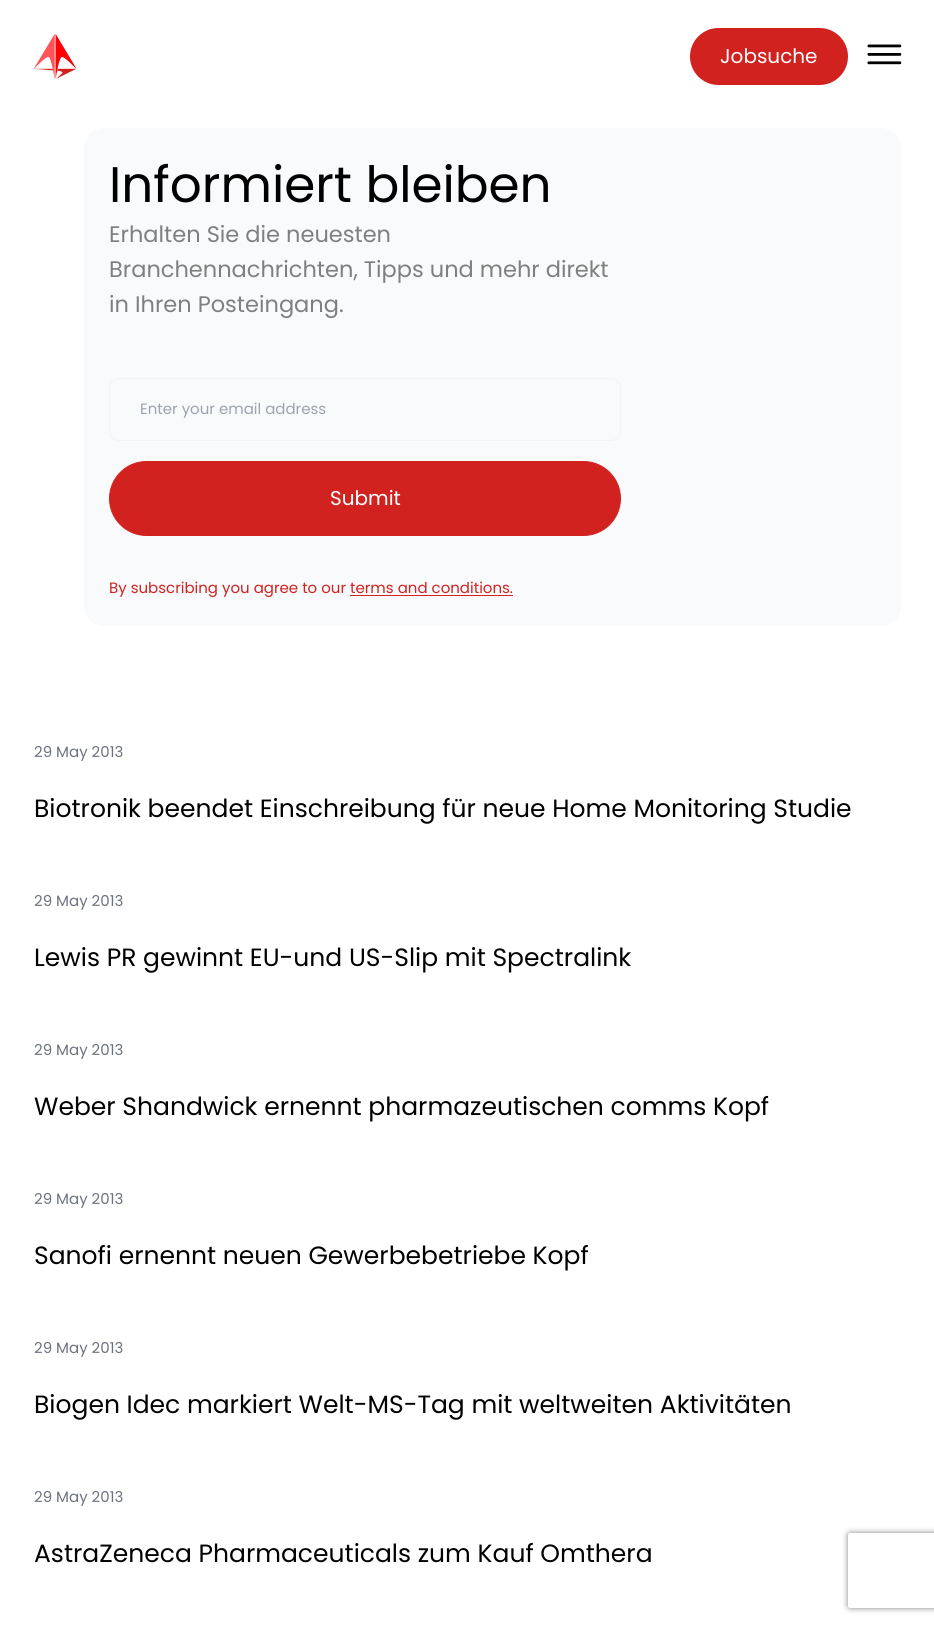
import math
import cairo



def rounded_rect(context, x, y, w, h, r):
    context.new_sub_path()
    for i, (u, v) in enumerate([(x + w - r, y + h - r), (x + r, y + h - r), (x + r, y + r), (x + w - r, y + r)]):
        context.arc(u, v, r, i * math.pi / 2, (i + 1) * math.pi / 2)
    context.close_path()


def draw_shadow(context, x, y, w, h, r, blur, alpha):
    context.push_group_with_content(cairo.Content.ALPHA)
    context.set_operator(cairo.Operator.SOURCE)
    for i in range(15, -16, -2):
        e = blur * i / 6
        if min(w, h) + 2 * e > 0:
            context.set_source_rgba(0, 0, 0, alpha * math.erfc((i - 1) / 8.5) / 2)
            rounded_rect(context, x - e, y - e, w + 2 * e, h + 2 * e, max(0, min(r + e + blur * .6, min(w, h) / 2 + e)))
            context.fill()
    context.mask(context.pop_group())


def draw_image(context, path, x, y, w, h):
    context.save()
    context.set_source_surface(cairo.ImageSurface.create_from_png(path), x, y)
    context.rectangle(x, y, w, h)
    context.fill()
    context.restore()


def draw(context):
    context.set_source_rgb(1, 1, 1)
    context.paint()
    draw_image(context, "images/1.png", 34, 34, 42, 45)
    context.set_source_rgb(209 / 255, 34 / 255, 32 / 255)
    rounded_rect(context, 691.5, 29.5, 155, 54, 27)
    context.fill_preserve()
    context.set_line_width(3)
    context.stroke()
    draw_image(context, "images/2.png", 867, 44, 35, 21)
    context.set_source_rgb(249 / 255, 250 / 255, 251 / 255)
    rounded_rect(context, 84, 128, 817, 498, 20)
    context.fill()
    rounded_rect(context, 109.5, 378.5, 511, 62, 9.5)
    context.set_source_rgb(241 / 255, 243 / 255, 244 / 255)
    context.set_line_width(1)
    context.stroke()
    context.set_source_rgb(209 / 255, 34 / 255, 32 / 255)
    rounded_rect(context, 109.5, 461.5, 511, 74, 37)
    context.fill_preserve()
    context.stroke()
    context.rectangle(350, 595, 163, 1)
    context.fill()
    context.save()
    context.set_fill_rule(cairo.FillRule.EVEN_ODD)
    context.new_path()
    context.move_to(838, 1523)
    context.line_to(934, 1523)
    context.line_to(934, 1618)
    context.line_to(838, 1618)
    context.close_path()
    context.move_to(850.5, 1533)
    context.line_to(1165.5, 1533)
    context.curve_to(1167, 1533, 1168, 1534, 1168, 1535.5)
    context.line_to(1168, 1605.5)
    context.curve_to(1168, 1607, 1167, 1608, 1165.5, 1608)
    context.line_to(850.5, 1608)
    context.curve_to(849, 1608, 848, 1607, 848, 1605.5)
    context.line_to(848, 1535.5)
    context.curve_to(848, 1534, 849, 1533, 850.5, 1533)
    context.close_path()
    context.clip()
    context.set_source_rgb(128 / 255, 128 / 255, 128 / 255)
    draw_shadow(context, 848, 1533, 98, 75, 2.5, 3, 1)
    context.restore()
    context.select_font_face("Poppins")
    context.set_font_size(20)
    context.set_source_rgb(1, 1, 1)
    context.move_to(720, 63)
    context.show_text("Jobsuche")
    context.set_font_size(50)
    context.set_source_rgb(0, 0, 0)
    context.move_to(109, 202)
    context.show_text("Informiert bleiben")
    context.set_font_size(22.5)
    context.set_source_rgb(127 / 255, 127 / 255, 127 / 255)
    context.move_to(109, 242)
    context.show_text("Erhalten Sie die neuesten")
    context.move_to(109, 277)
    context.show_text("Branchennachrichten, Tipps und mehr direkt")
    context.move_to(109, 312)
    context.show_text("in Ihren Posteingang.")
    context.set_font_size(15)
    context.set_source_rgb(156 / 255, 163 / 255, 175 / 255)
    context.move_to(140, 414)
    context.show_text("Enter your email address")
    context.set_font_size(20)
    context.set_source_rgb(1, 1, 1)
    context.move_to(330, 505)
    context.show_text("Submit")
    context.set_font_size(15)
    context.set_source_rgb(209 / 255, 34 / 255, 32 / 255)
    context.move_to(109, 593)
    context.show_text("By subscribing you agree to our terms and conditions.")
    context.set_source_rgb(109 / 255, 114 / 255, 128 / 255)
    context.move_to(34, 757)
    context.show_text("29 May 2013")
    context.set_font_size(25)
    context.set_source_rgb(0, 0, 0)
    context.move_to(34, 817)
    context.show_text("Biotronik beendet Einschreibung für neue Home Monitoring Studie")
    context.set_font_size(15)
    context.set_source_rgb(109 / 255, 114 / 255, 128 / 255)
    context.move_to(34, 906)
    context.show_text("29 May 2013")
    context.set_font_size(25)
    context.set_source_rgb(0, 0, 0)
    context.move_to(34, 966)
    context.show_text("Lewis PR gewinnt EU-und US-Slip mit Spectralink")
    context.set_font_size(15)
    context.set_source_rgb(109 / 255, 114 / 255, 128 / 255)
    context.move_to(34, 1055)
    context.show_text("29 May 2013")
    context.set_font_size(25)
    context.set_source_rgb(0, 0, 0)
    context.move_to(34, 1115)
    context.show_text("Weber Shandwick ernennt pharmazeutischen comms Kopf")
    context.set_font_size(15)
    context.set_source_rgb(109 / 255, 114 / 255, 128 / 255)
    context.move_to(34, 1204)
    context.show_text("29 May 2013")
    context.set_font_size(25)
    context.set_source_rgb(0, 0, 0)
    context.move_to(34, 1264)
    context.show_text("Sanofi ernennt neuen Gewerbebetriebe Kopf")
    context.set_font_size(15)
    context.set_source_rgb(109 / 255, 114 / 255, 128 / 255)
    context.move_to(34, 1353)
    context.show_text("29 May 2013")
    context.set_font_size(25)
    context.set_source_rgb(0, 0, 0)
    context.move_to(34, 1413)
    context.show_text("Biogen Idec markiert Welt-MS-Tag mit weltweiten Aktivitäten")
    context.set_font_size(15)
    context.set_source_rgb(109 / 255, 114 / 255, 128 / 255)
    context.move_to(34, 1502)
    context.show_text("29 May 2013")
    context.set_font_size(25)
    context.set_source_rgb(0, 0, 0)
    context.move_to(34, 1562)
    context.show_text("AstraZeneca Pharmaceuticals zum Kauf Omthera")


surface = cairo.ImageSurface(cairo.Format.RGB24, 934, 1625)
context = cairo.Context(surface)
options = cairo.FontOptions()
options.set_hint_metrics(cairo.HintMetrics.OFF)
options.set_hint_style(cairo.HintStyle.NONE)
context.set_font_options(options)
context.set_miter_limit(4)
draw(context)
surface.write_to_png("out.png")
